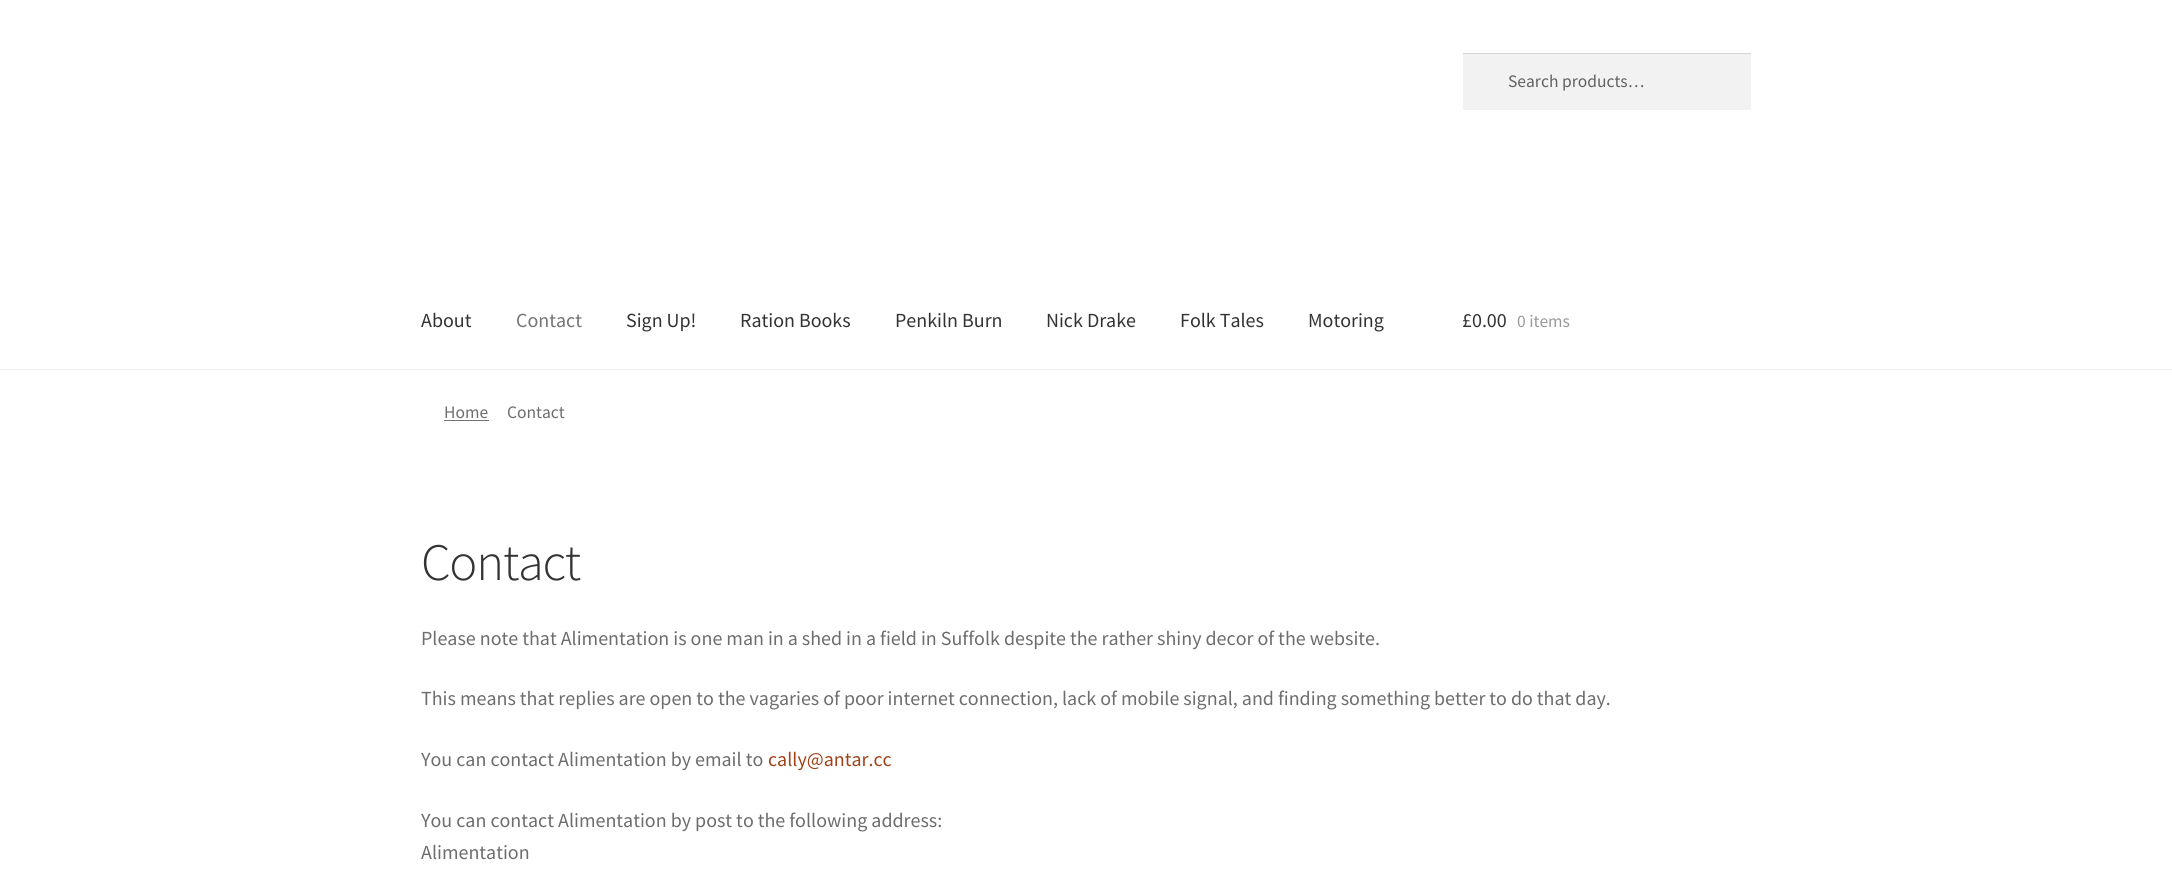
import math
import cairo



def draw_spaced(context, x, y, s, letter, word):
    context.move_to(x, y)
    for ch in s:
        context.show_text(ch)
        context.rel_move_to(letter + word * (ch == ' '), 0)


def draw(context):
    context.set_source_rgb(1, 1, 1)
    context.paint()
    context.set_source_rgb(240 / 255, 240 / 255, 240 / 255)
    context.rectangle(0, 369, 2172, 1)
    context.fill()
    context.set_source_rgb(242 / 255, 242 / 255, 242 / 255)
    context.rectangle(1463, 54, 288, 56)
    context.fill()
    context.set_source_rgb(212 / 255, 212 / 255, 212 / 255)
    context.rectangle(1463, 53, 288, 1)
    context.fill()
    context.set_source_rgb(114 / 255, 114 / 255, 114 / 255)
    context.rectangle(444, 420, 45, 1)
    context.fill()
    context.select_font_face("Source Sans Pro")
    context.set_font_size(17.5)
    context.set_source_rgb(97 / 255, 97 / 255, 97 / 255)
    context.move_to(1508, 87)
    context.show_text("Search products…")
    context.set_font_size(20)
    context.set_source_rgb(51 / 255, 51 / 255, 51 / 255)
    context.move_to(421, 327)
    context.show_text("About")
    context.set_source_rgb(116 / 255, 116 / 255, 116 / 255)
    context.move_to(516, 327)
    context.show_text("Contact")
    context.set_source_rgb(51 / 255, 51 / 255, 51 / 255)
    context.move_to(626, 327)
    context.show_text("Sign Up!")
    context.move_to(740, 327)
    context.show_text("Ration Books")
    context.move_to(895, 327)
    context.show_text("Penkiln Burn")
    context.move_to(1046, 327)
    context.show_text("Nick Drake")
    context.move_to(1180, 327)
    context.show_text("Folk Tales")
    context.move_to(1308, 327)
    context.show_text("Motoring")
    context.move_to(1462, 327)
    context.show_text("£0.00")
    context.set_font_size(17.5)
    context.set_source_rgb(153 / 255, 153 / 255, 153 / 255)
    context.move_to(1517, 327)
    context.show_text("0 items")
    context.set_source_rgb(109 / 255, 109 / 255, 109 / 255)
    context.move_to(444, 418)
    context.show_text("Home")
    context.move_to(507, 418)
    context.show_text("Contact")
    context.select_font_face("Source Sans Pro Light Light")
    context.set_font_size(52.5)
    context.set_source_rgb(51 / 255, 51 / 255, 51 / 255)
    draw_spaced(context, 421, 580, "Contact", -1.25, 0)
    context.select_font_face("Source Sans Pro")
    context.set_font_size(20)
    context.set_source_rgb(109 / 255, 109 / 255, 109 / 255)
    context.move_to(421, 645)
    context.show_text("Please note that Alimentation is one man in a shed in a field in Suffolk despite the rather shiny decor of the website.")
    context.move_to(421, 705)
    context.show_text("This means that replies are open to the vagaries of poor internet connection, lack of mobile signal, and finding something better to do that day.")
    context.move_to(421, 766)
    context.show_text("You can contact Alimentation by email to")
    context.set_source_rgb(163 / 255, 66 / 255, 24 / 255)
    context.move_to(768, 766)
    context.show_text("cally@antar.cc")
    context.set_source_rgb(109 / 255, 109 / 255, 109 / 255)
    context.move_to(421, 827)
    context.show_text("You can contact Alimentation by post to the following address:")
    context.move_to(421, 859)
    context.show_text("Alimentation")


surface = cairo.ImageSurface(cairo.Format.RGB24, 2172, 870)
context = cairo.Context(surface)
options = cairo.FontOptions()
options.set_hint_metrics(cairo.HintMetrics.OFF)
options.set_hint_style(cairo.HintStyle.NONE)
context.set_font_options(options)
context.set_miter_limit(4)
draw(context)
surface.write_to_png("out.png")
